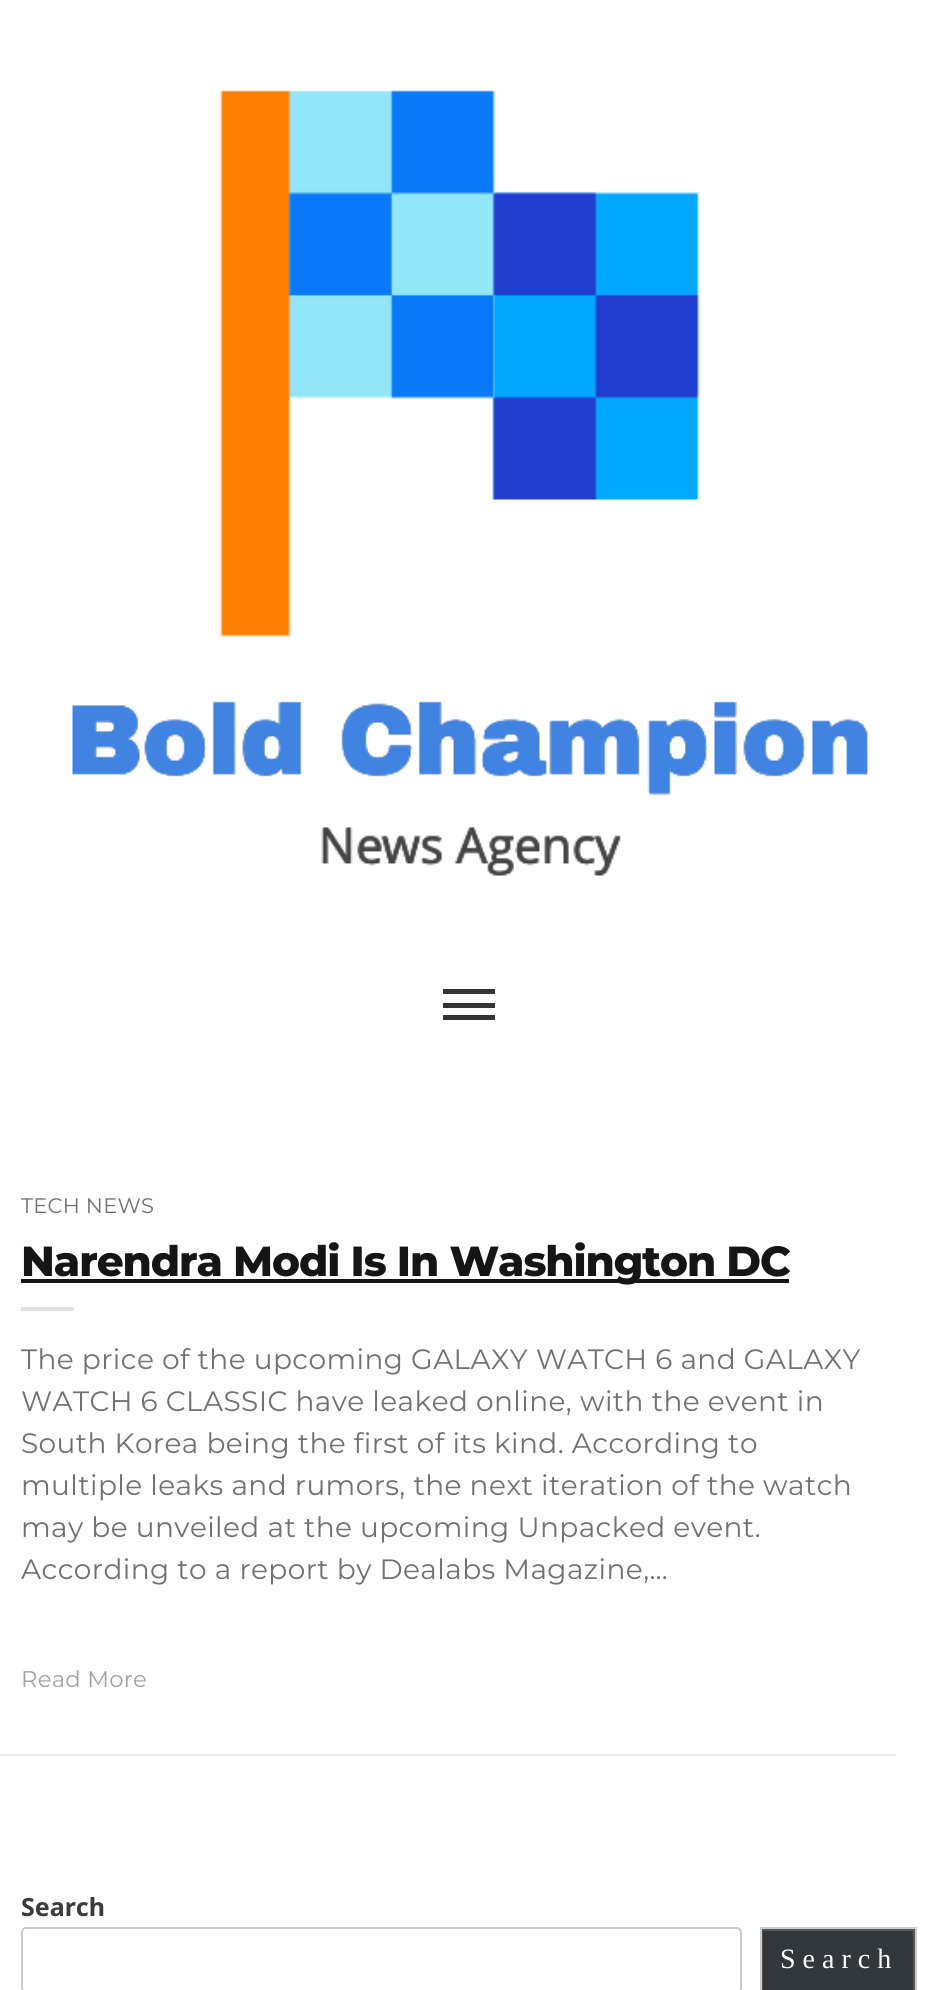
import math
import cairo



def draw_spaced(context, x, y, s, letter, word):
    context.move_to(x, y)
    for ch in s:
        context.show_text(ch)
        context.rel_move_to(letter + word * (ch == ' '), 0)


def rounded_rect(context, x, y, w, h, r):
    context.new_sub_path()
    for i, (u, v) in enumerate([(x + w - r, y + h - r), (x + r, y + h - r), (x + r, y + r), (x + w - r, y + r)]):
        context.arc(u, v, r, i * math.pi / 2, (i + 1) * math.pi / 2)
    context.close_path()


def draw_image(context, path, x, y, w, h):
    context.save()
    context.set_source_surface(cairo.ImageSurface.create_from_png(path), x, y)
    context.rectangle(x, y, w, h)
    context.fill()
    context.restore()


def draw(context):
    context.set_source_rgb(1, 1, 1)
    context.paint()
    draw_image(context, "images/1.png", 72, 90, 797, 786)
    context.set_source_rgb(51 / 255, 51 / 255, 51 / 255)
    context.rectangle(443, 989, 52, 5)
    context.fill()
    context.rectangle(443, 1003, 52, 5)
    context.fill()
    context.rectangle(443, 1015, 52, 5)
    context.fill()
    context.set_source_rgb(238 / 255, 238 / 255, 238 / 255)
    context.rectangle(0, 1754, 896, 2)
    context.fill()
    context.set_source_rgb(21 / 255, 21 / 255, 21 / 255)
    context.rectangle(21, 1279, 768, 4)
    context.fill()
    context.set_source_rgb(225 / 255, 225 / 255, 225 / 255)
    context.rectangle(21, 1307, 53, 4)
    context.fill()
    rounded_rect(context, 22, 1928, 719, 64, 4)
    context.set_source_rgb(204 / 255, 204 / 255, 204 / 255)
    context.stroke()
    context.set_source_rgb(50 / 255, 55 / 255, 60 / 255)
    context.rectangle(762, 1930, 152, 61)
    context.fill_preserve()
    context.set_source_rgb(83 / 255, 87 / 255, 90 / 255)
    context.stroke()
    context.rectangle(761, 1928, 155, 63)
    context.set_source_rgb(204 / 255, 204 / 255, 204 / 255)
    context.stroke()
    context.select_font_face("Montserrat")
    context.set_font_size(21)
    context.set_source_rgb(113 / 255, 113 / 255, 113 / 255)
    draw_spaced(context, 21, 1213, "TECH NEWS", 0.25, 0)
    context.select_font_face("Montserrat ExtraBold")
    context.set_font_size(42)
    context.set_source_rgb(21 / 255, 21 / 255, 21 / 255)
    draw_spaced(context, 21, 1276, "Narendra Modi Is In Washington DC", -1.05, 0)
    context.select_font_face("Montserrat")
    context.set_font_size(28)
    context.set_source_rgb(113 / 255, 113 / 255, 113 / 255)
    draw_spaced(context, 21, 1369, "The price of the upcoming GALAXY WATCH 6 and GALAXY", 0.4, 0)
    draw_spaced(context, 21, 1411, "WATCH 6 CLASSIC have leaked online, with the event in", 0.4, 0)
    draw_spaced(context, 21, 1453, "South Korea being the first of its kind. According to", 0.4, 0)
    draw_spaced(context, 21, 1495, "multiple leaks and rumors, the next iteration of the watch", 0.4, 0)
    draw_spaced(context, 21, 1537, "may be unveiled at the upcoming Unpacked event.", 0.4, 0)
    draw_spaced(context, 21, 1579, "According to a report by Dealabs Magazine,…", 0.4, 0)
    context.set_font_size(22.75)
    context.set_source_rgb(161 / 255, 161 / 255, 161 / 255)
    draw_spaced(context, 21, 1687, "Read More", 0.25, 0)
    context.select_font_face("Noto Sans", cairo.FontSlant.NORMAL, cairo.FontWeight.BOLD)
    context.set_font_size(25)
    context.set_source_rgb(60 / 255, 59 / 255, 59 / 255)
    context.move_to(21, 1916)
    context.show_text("Search")
    context.select_font_face("Liberation Serif")
    context.set_font_size(28)
    context.set_source_rgb(1, 1, 1)
    draw_spaced(context, 780, 1968, "Search", 7, 0)


surface = cairo.ImageSurface(cairo.Format.RGB24, 937, 1990)
context = cairo.Context(surface)
options = cairo.FontOptions()
options.set_hint_metrics(cairo.HintMetrics.OFF)
options.set_hint_style(cairo.HintStyle.NONE)
context.set_font_options(options)
context.set_miter_limit(4)
draw(context)
surface.write_to_png("out.png")
